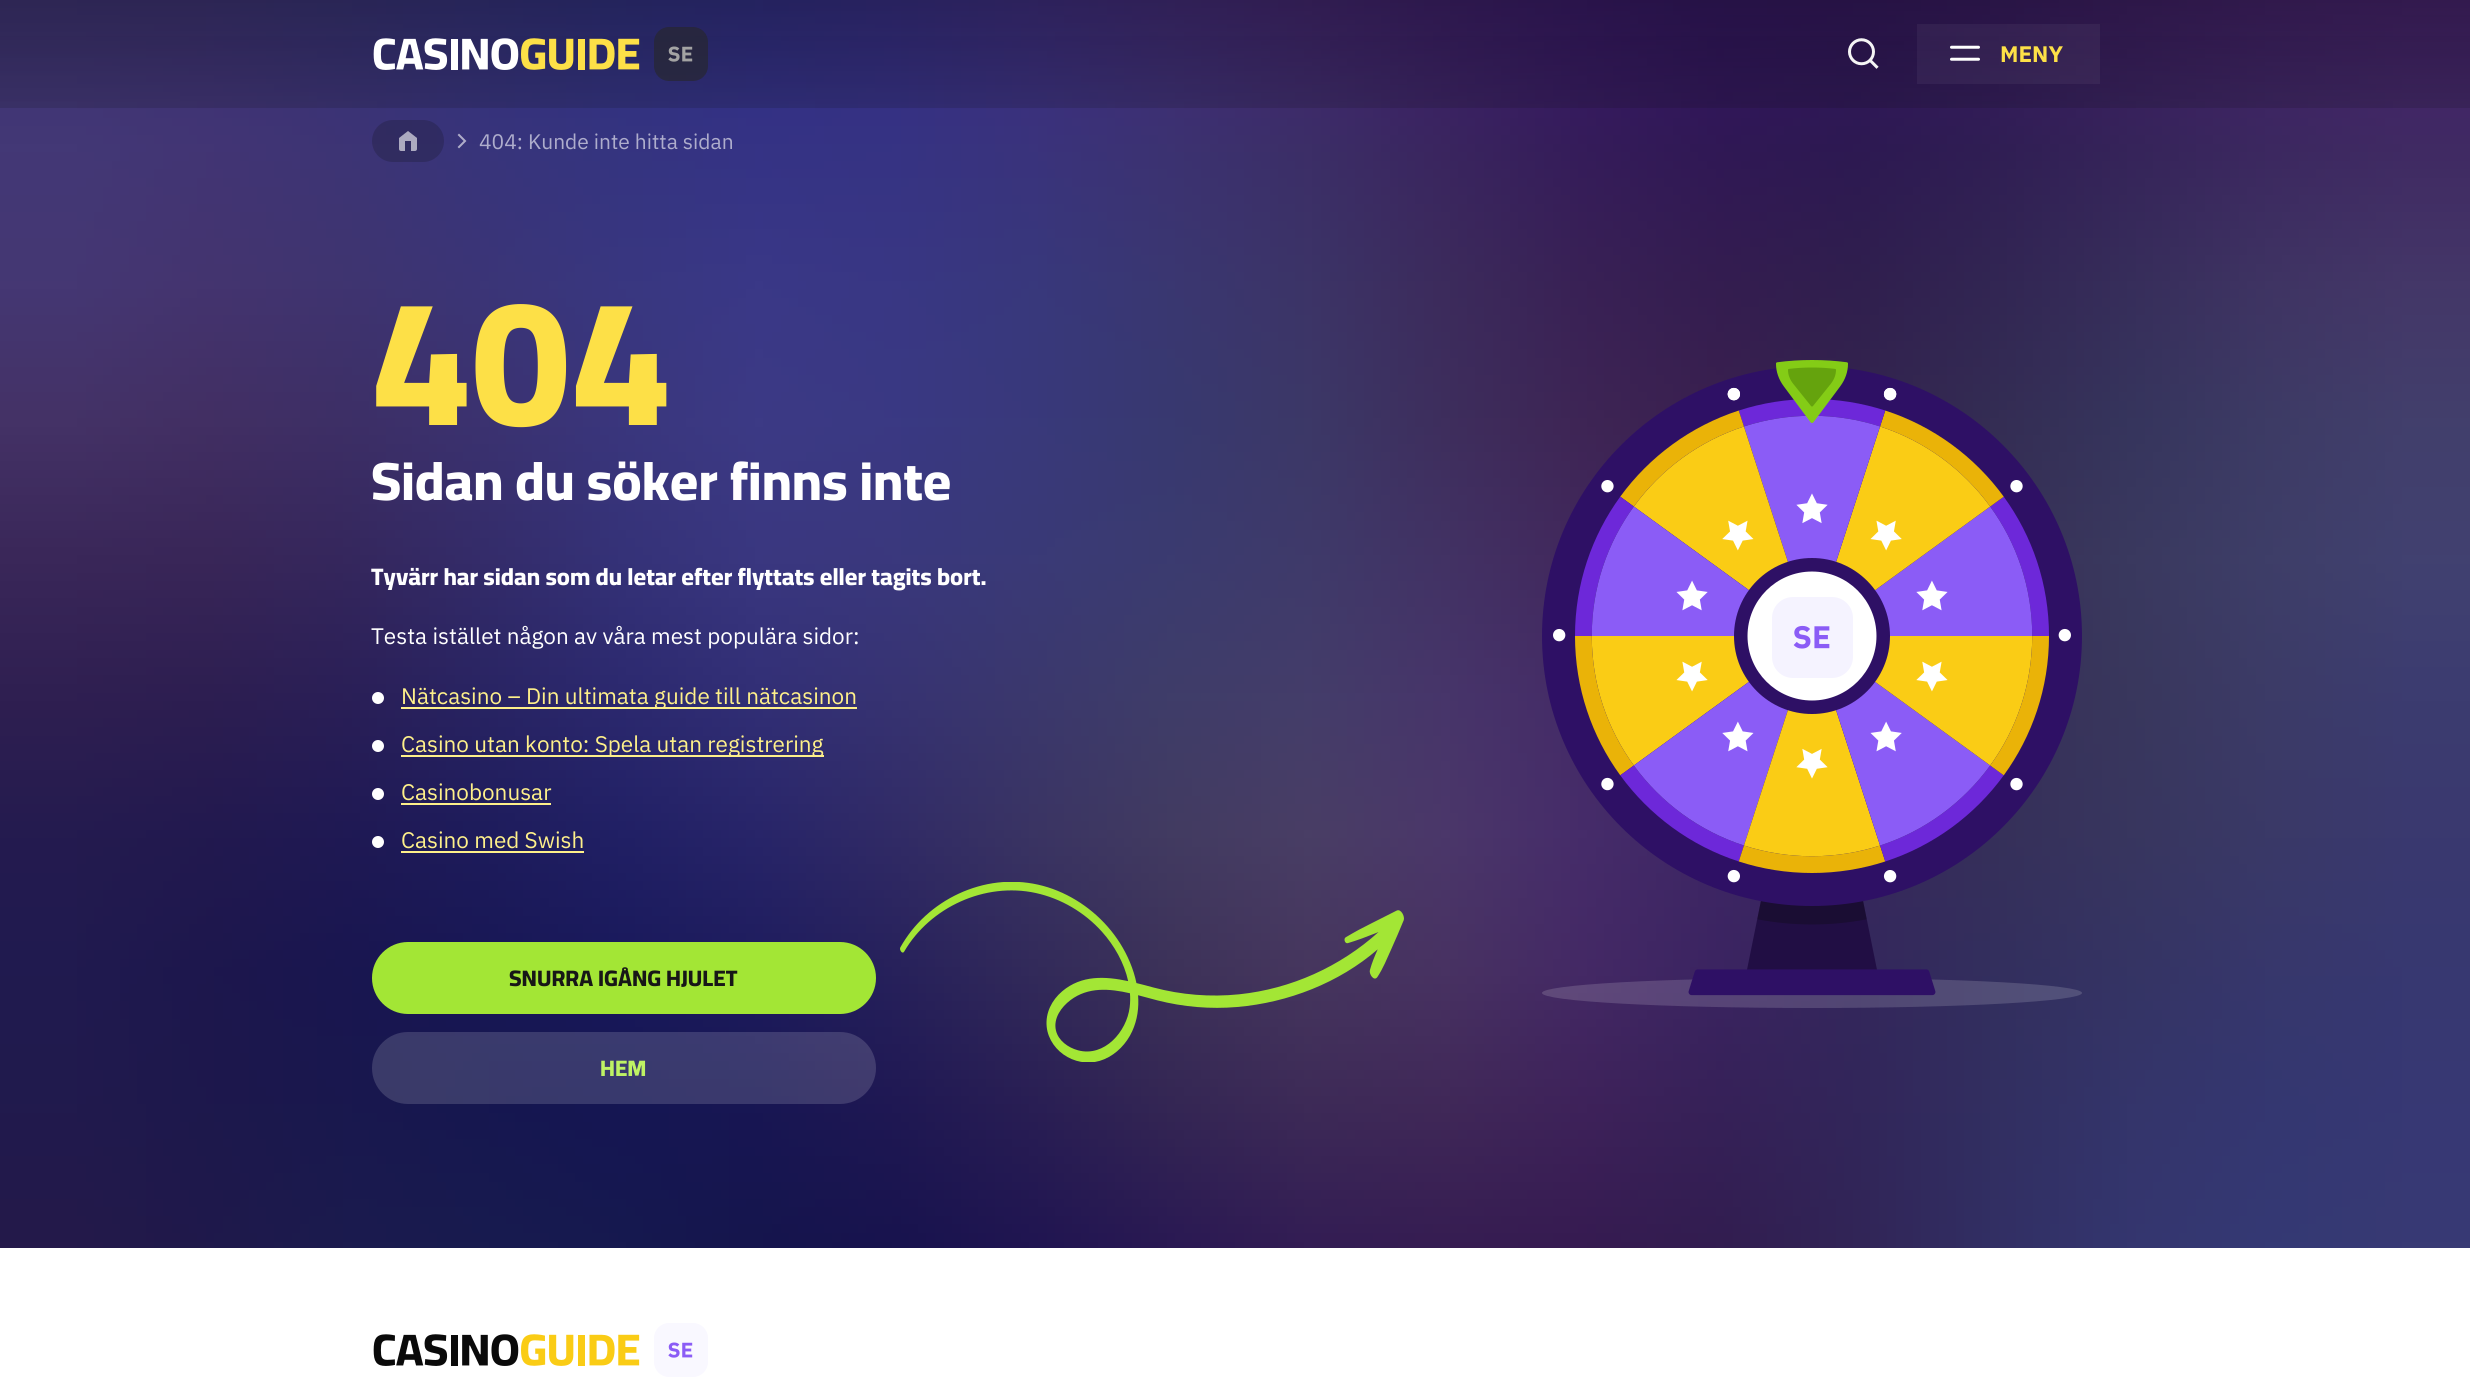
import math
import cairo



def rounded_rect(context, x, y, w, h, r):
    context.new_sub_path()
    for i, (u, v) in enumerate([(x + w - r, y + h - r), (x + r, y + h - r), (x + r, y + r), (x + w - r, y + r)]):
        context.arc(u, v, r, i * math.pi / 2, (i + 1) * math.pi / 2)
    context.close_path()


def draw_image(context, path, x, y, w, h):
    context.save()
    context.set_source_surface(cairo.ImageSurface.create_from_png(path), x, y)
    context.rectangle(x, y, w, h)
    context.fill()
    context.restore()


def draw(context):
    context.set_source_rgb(1, 1, 1)
    context.paint()
    draw_image(context, "images/4.png", 0, 0, 2470, 1248)
    draw_image(context, "images/1.png", 373, 27, 335, 54)
    draw_image(context, "images/2.png", 1848, 38, 31, 31)
    context.set_source_rgba(1, 1, 1, 0.05)
    context.rectangle(1917, 24, 183, 60)
    context.fill()
    draw_image(context, "images/3.png", 1950, 45, 30, 16)
    context.set_source_rgba(10 / 255, 10 / 255, 10 / 255, 0.2)
    rounded_rect(context, 372, 120, 72, 42, 21)
    context.fill()
    draw_image(context, "images/5.png", 399, 131, 18, 20)
    draw_image(context, "images/6.png", 457, 133, 10, 16)
    draw_image(context, "images/8.png", 1542, 368, 540, 640)
    draw_image(context, "images/9.png", 1575, 399, 474, 474)
    draw_image(context, "images/7.png", 1772, 360, 81, 318)
    context.set_source_rgb(1, 1, 1)
    context.arc(378, 698, 6, 0, 2 * math.pi)
    context.fill()
    context.set_source_rgb(254 / 255, 240 / 255, 138 / 255)
    context.rectangle(401, 707, 456, 2)
    context.fill()
    context.set_source_rgb(1, 1, 1)
    context.arc(378, 746, 6, 0, 2 * math.pi)
    context.fill()
    context.set_source_rgb(254 / 255, 240 / 255, 138 / 255)
    context.rectangle(401, 755, 423, 2)
    context.fill()
    context.set_source_rgb(1, 1, 1)
    context.arc(378, 794, 6, 0, 2 * math.pi)
    context.fill()
    context.set_source_rgb(254 / 255, 240 / 255, 138 / 255)
    context.rectangle(401, 803, 150, 2)
    context.fill()
    context.set_source_rgb(1, 1, 1)
    context.arc(378, 842, 6, 0, 2 * math.pi)
    context.fill()
    context.set_source_rgb(254 / 255, 240 / 255, 138 / 255)
    context.rectangle(401, 851, 183, 2)
    context.fill()
    context.set_source_rgb(163 / 255, 230 / 255, 53 / 255)
    rounded_rect(context, 372, 942, 504, 72, 36)
    context.fill()
    draw_image(context, "images/10.png", 900, 882, 504, 180)
    context.set_source_rgba(1, 1, 1, 0.15)
    rounded_rect(context, 372, 1032, 504, 72, 36)
    context.fill()
    draw_image(context, "images/11.png", 373, 1323, 335, 54)
    context.select_font_face("IBM Plex Sans", cairo.FontSlant.NORMAL, cairo.FontWeight.BOLD)
    context.set_font_size(22.5)
    context.set_source_rgb(253 / 255, 224 / 255, 71 / 255)
    context.move_to(2000, 62)
    context.show_text("MENY")
    context.select_font_face("IBM Plex Sans")
    context.set_font_size(21)
    context.set_source_rgb(174 / 255, 173 / 255, 204 / 255)
    context.move_to(479, 149)
    context.show_text("404: Kunde inte hitta sidan")
    context.select_font_face("Cairo ExtraBold")
    context.set_font_size(180)
    context.set_source_rgb(253 / 255, 224 / 255, 71 / 255)
    context.move_to(371, 425)
    context.show_text("404")
    context.set_font_size(54)
    context.set_source_rgb(1, 1, 1)
    context.move_to(371, 500)
    context.show_text("Sidan du söker finns inte")
    context.set_font_size(24)
    context.move_to(371, 585)
    context.show_text("Tyvärr har sidan som du letar efter flyttats eller tagits bort.")
    context.select_font_face("IBM Plex Sans")
    context.set_font_size(22.5)
    context.move_to(371, 644)
    context.show_text("Testa istället någon av våra mest populära sidor:")
    context.set_source_rgb(254 / 255, 240 / 255, 138 / 255)
    context.move_to(401, 704)
    context.show_text("Nätcasino – Din ultimata guide till nätcasinon")
    context.move_to(401, 752)
    context.show_text("Casino utan konto: Spela utan registrering")
    context.move_to(401, 800)
    context.show_text("Casinobonusar")
    context.move_to(401, 848)
    context.show_text("Casino med Swish")
    context.select_font_face("Cairo ExtraBold")
    context.set_source_rgb(23 / 255, 23 / 255, 23 / 255)
    context.move_to(509, 986)
    context.show_text("SNURRA IGÅNG HJULET")
    context.set_source_rgb(190 / 255, 242 / 255, 100 / 255)
    context.move_to(600, 1076)
    context.show_text("HEM")


surface = cairo.ImageSurface(cairo.Format.RGB24, 2470, 1398)
context = cairo.Context(surface)
options = cairo.FontOptions()
options.set_hint_metrics(cairo.HintMetrics.OFF)
options.set_hint_style(cairo.HintStyle.NONE)
context.set_font_options(options)
context.set_miter_limit(4)
draw(context)
surface.write_to_png("out.png")
